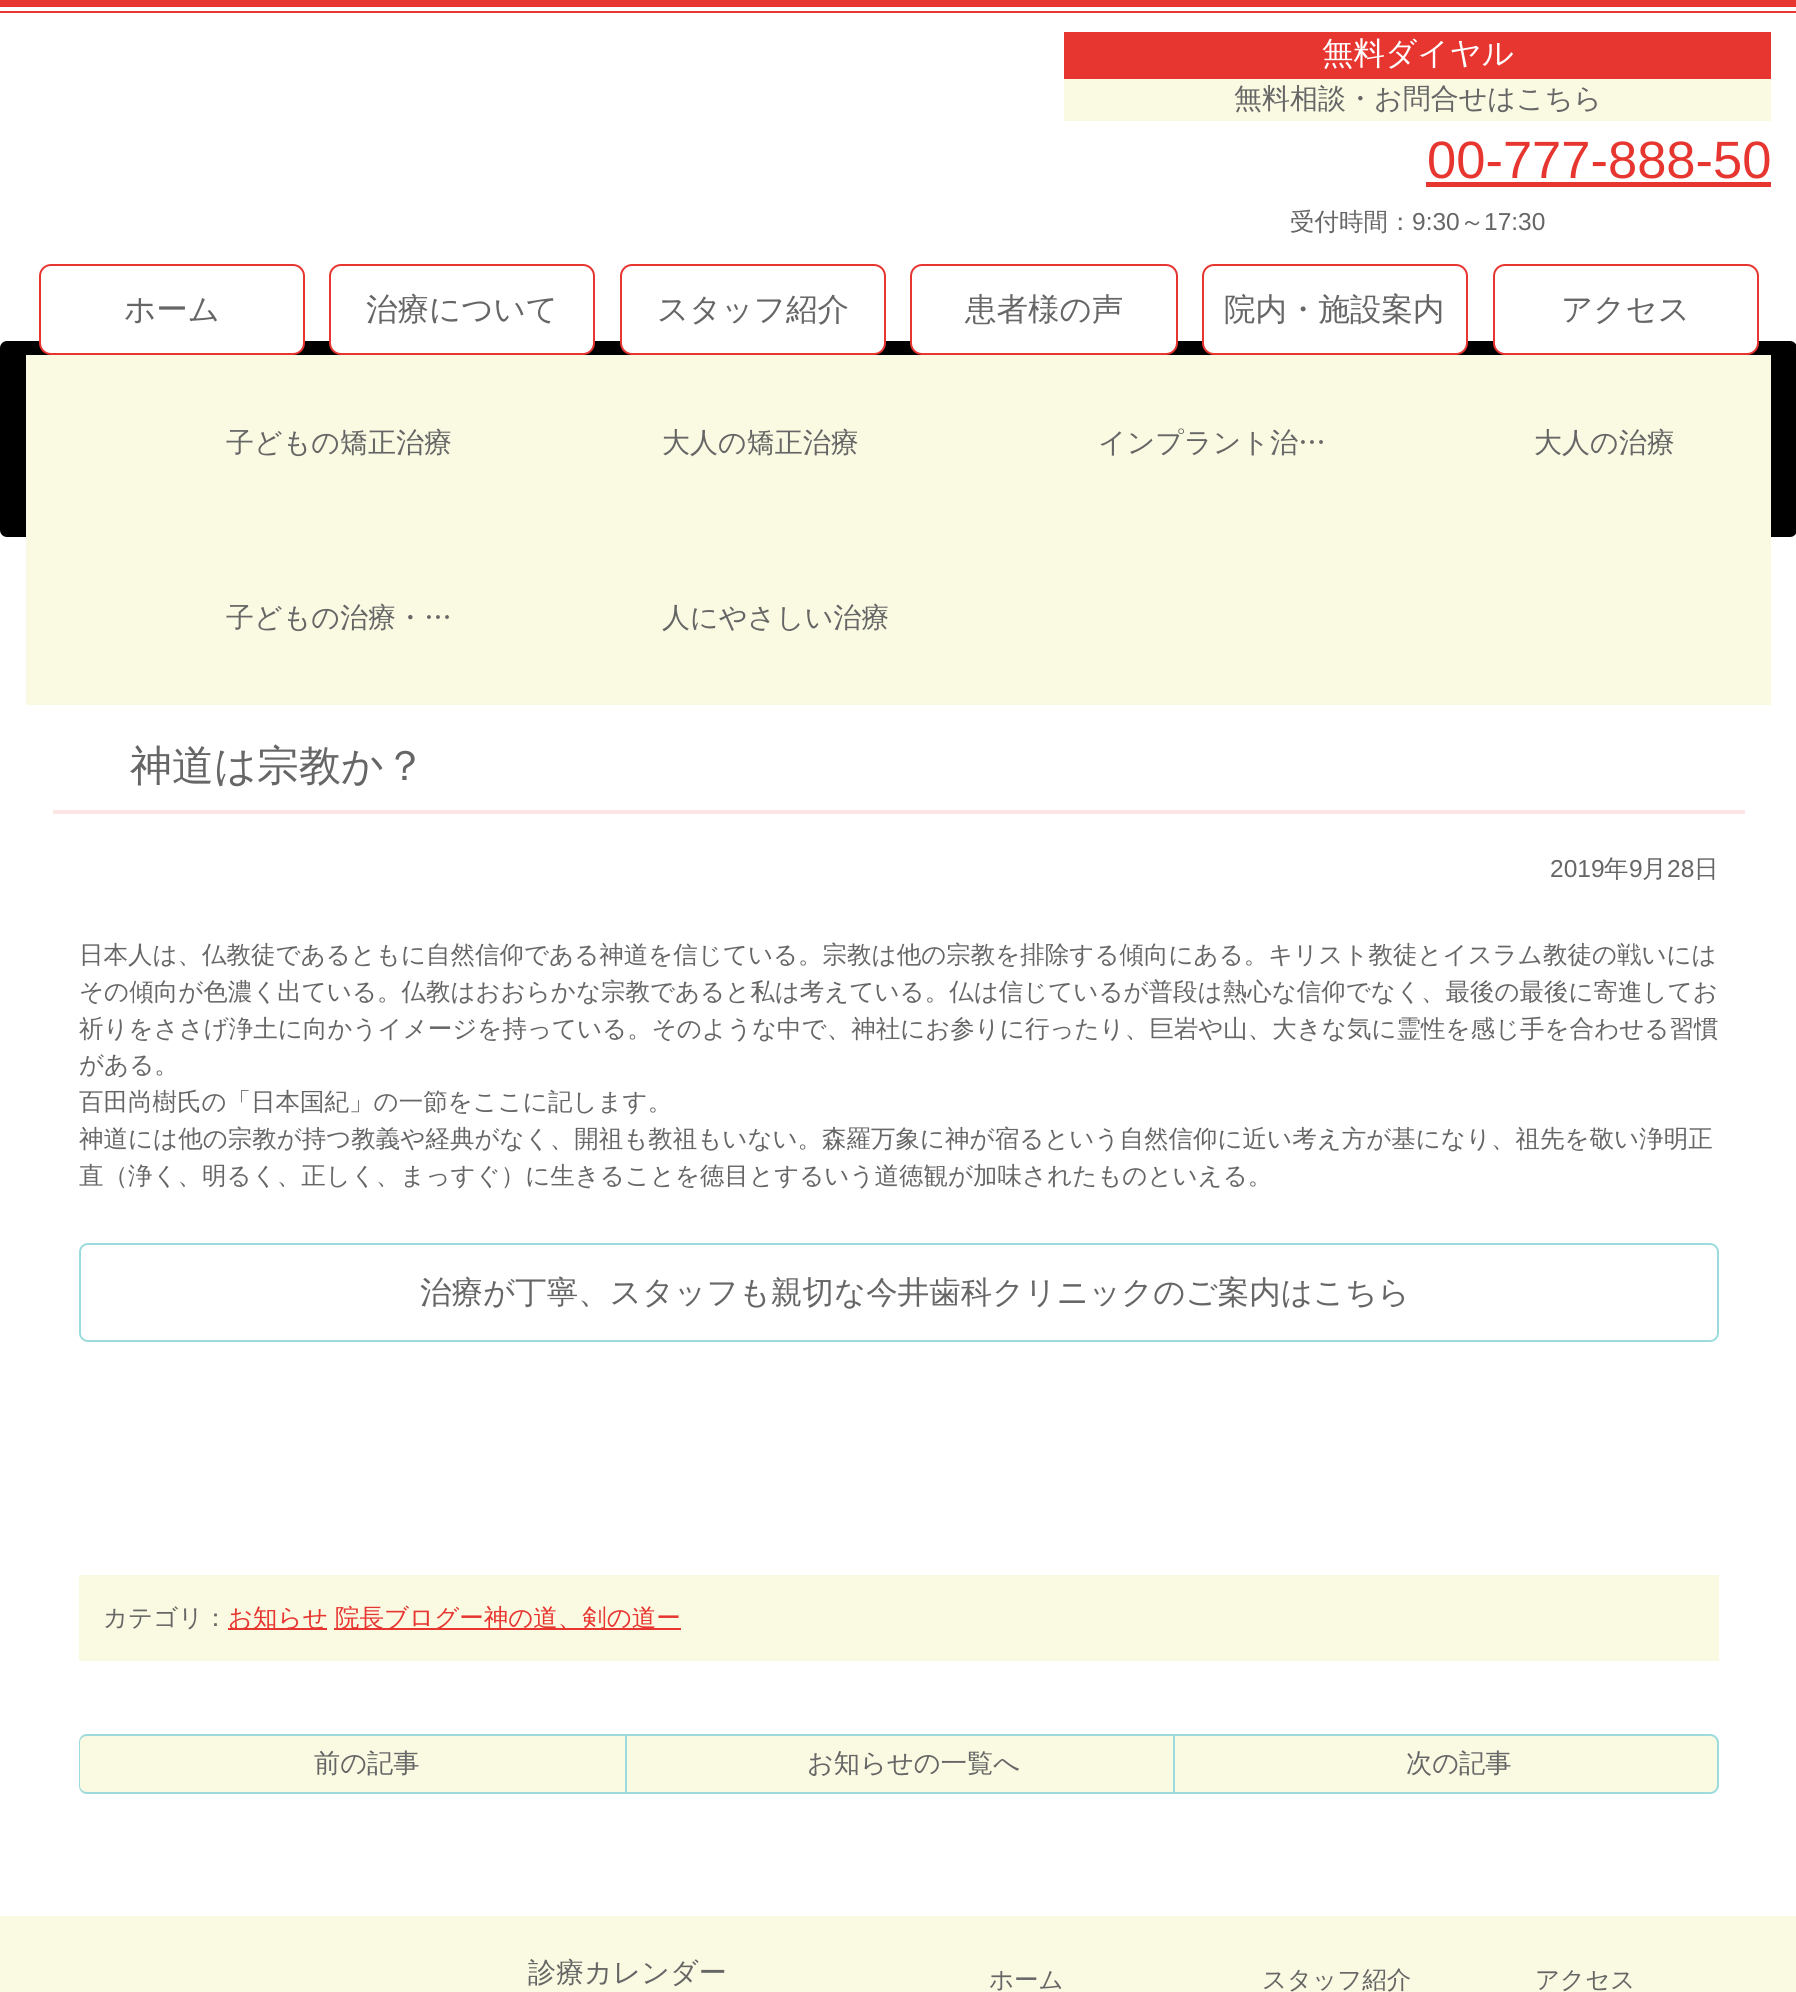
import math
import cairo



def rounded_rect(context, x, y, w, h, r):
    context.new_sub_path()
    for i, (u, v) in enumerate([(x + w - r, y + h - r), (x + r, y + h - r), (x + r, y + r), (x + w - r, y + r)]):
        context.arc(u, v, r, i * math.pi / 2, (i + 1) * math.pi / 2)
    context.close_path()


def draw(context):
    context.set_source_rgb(1, 1, 1)
    context.paint()
    context.set_source_rgb(231 / 255, 53 / 255, 48 / 255)
    context.rectangle(0, 0, 1796, 7)
    context.fill()
    context.rectangle(0, 11, 1796, 2)
    context.fill()
    context.rectangle(1064, 32, 707, 47)
    context.fill()
    context.set_source_rgb(250 / 255, 249 / 255, 226 / 255)
    context.rectangle(1064, 79, 707, 42)
    context.fill()
    context.set_source_rgb(231 / 255, 53 / 255, 48 / 255)
    context.rectangle(1426, 182, 345, 5)
    context.fill()
    context.set_source_rgb(0, 0, 0)
    rounded_rect(context, 0, 341, 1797, 196, 7)
    context.fill()
    context.set_source_rgb(1, 1, 1)
    rounded_rect(context, 1203, 265, 264, 89, 11)
    context.fill_preserve()
    context.set_source_rgb(231 / 255, 53 / 255, 48 / 255)
    context.stroke()
    context.set_source_rgb(1, 1, 1)
    rounded_rect(context, 330, 265, 264, 89, 11)
    context.fill_preserve()
    context.set_source_rgb(231 / 255, 53 / 255, 48 / 255)
    context.stroke()
    context.set_source_rgb(250 / 255, 249 / 255, 226 / 255)
    context.rectangle(26, 355, 1745, 350)
    context.fill()
    context.set_source_rgb(1, 1, 1)
    rounded_rect(context, 40, 265, 264, 89, 11)
    context.fill_preserve()
    context.set_source_rgb(231 / 255, 53 / 255, 48 / 255)
    context.stroke()
    context.set_source_rgb(1, 1, 1)
    rounded_rect(context, 621, 265, 264, 89, 11)
    context.fill_preserve()
    context.set_source_rgb(231 / 255, 53 / 255, 48 / 255)
    context.stroke()
    context.set_source_rgb(1, 1, 1)
    rounded_rect(context, 911, 265, 266, 89, 11)
    context.fill_preserve()
    context.set_source_rgb(231 / 255, 53 / 255, 48 / 255)
    context.stroke()
    context.set_source_rgb(1, 1, 1)
    rounded_rect(context, 1494, 265, 264, 89, 11)
    context.fill_preserve()
    context.set_source_rgb(231 / 255, 53 / 255, 48 / 255)
    context.stroke()
    context.set_source_rgb(252 / 255, 229 / 255, 229 / 255)
    context.rectangle(53, 810, 1692, 4)
    context.fill()
    rounded_rect(context, 80, 1244, 1638, 97, 8)
    context.set_source_rgb(155 / 255, 219 / 255, 221 / 255)
    context.stroke()
    context.set_source_rgb(250 / 255, 249 / 255, 226 / 255)
    context.rectangle(79, 1575, 1640, 86)
    context.fill()
    context.set_source_rgb(231 / 255, 53 / 255, 48 / 255)
    context.rectangle(228, 1628, 99, 2)
    context.fill()
    context.rectangle(334, 1628, 347, 2)
    context.fill()
    context.set_source_rgb(250 / 255, 249 / 255, 226 / 255)
    context.new_path()
    context.move_to(88, 1734)
    context.line_to(625, 1734)
    context.line_to(625, 1794)
    context.line_to(88, 1794)
    context.curve_to(83, 1794, 79, 1790, 79, 1785)
    context.line_to(79, 1743)
    context.curve_to(79, 1738, 83, 1734, 88, 1734)
    context.close_path()
    context.fill()
    context.set_source_rgb(155 / 255, 219 / 255, 221 / 255)
    context.set_fill_rule(cairo.FillRule.EVEN_ODD)
    context.new_path()
    context.move_to(87, 1734)
    context.line_to(625, 1734)
    context.line_to(625, 1794)
    context.line_to(87, 1794)
    context.curve_to(82, 1794, 79, 1790, 79, 1786)
    context.line_to(79, 1742)
    context.curve_to(79, 1738, 82, 1734, 87, 1734)
    context.close_path()
    context.move_to(87, 1736)
    context.line_to(625, 1736)
    context.line_to(625, 1792)
    context.line_to(87, 1792)
    context.curve_to(83, 1792, 80, 1789, 80, 1786)
    context.line_to(80, 1742)
    context.curve_to(80, 1739, 83, 1736, 87, 1736)
    context.close_path()
    context.fill()
    context.set_source_rgb(250 / 255, 249 / 255, 226 / 255)
    context.rectangle(627, 1736, 546, 56)
    context.fill()
    context.set_source_rgb(155 / 255, 219 / 255, 221 / 255)
    context.rectangle(625, 1734, 548, 2)
    context.fill()
    context.rectangle(625, 1792, 548, 2)
    context.fill()
    context.rectangle(625, 1734, 2, 60)
    context.fill()
    context.set_source_rgb(250 / 255, 249 / 255, 226 / 255)
    context.new_path()
    context.move_to(1174, 1735)
    context.line_to(1710, 1735)
    context.curve_to(1714.5, 1735, 1718, 1738.5, 1718, 1743)
    context.line_to(1718, 1785)
    context.curve_to(1718, 1789.5, 1714.5, 1793, 1710, 1793)
    context.line_to(1174, 1793)
    context.close_path()
    context.fill_preserve()
    context.set_source_rgb(155 / 255, 219 / 255, 221 / 255)
    context.stroke()
    context.set_source_rgb(250 / 255, 249 / 255, 226 / 255)
    context.rectangle(0, 1916, 1796, 76)
    context.fill()
    context.select_font_face("WenQuanYi Zen Hei Medium")
    context.set_font_size(31.5)
    context.set_source_rgb(1, 1, 1)
    context.move_to(1322, 64)
    context.show_text("無料ダイヤル")
    context.set_font_size(28)
    context.set_source_rgb(102 / 255, 102 / 255, 102 / 255)
    context.move_to(1234, 108)
    context.show_text("無料相談・お問合せはこちら")
    context.select_font_face("Liberation Sans")
    context.set_font_size(52.5)
    context.set_source_rgb(231 / 255, 53 / 255, 48 / 255)
    context.move_to(1427, 178)
    context.show_text("00-777-888-50")
    context.select_font_face("WenQuanYi Zen Hei Medium")
    context.set_font_size(24.5)
    context.set_source_rgb(102 / 255, 102 / 255, 102 / 255)
    context.move_to(1290, 230)
    context.show_text("受付時間：")
    context.select_font_face("Liberation Sans")
    context.move_to(1412, 230)
    context.show_text("9:30")
    context.select_font_face("WenQuanYi Zen Hei Medium")
    context.move_to(1460, 230)
    context.show_text("～")
    context.select_font_face("Liberation Sans")
    context.move_to(1484, 230)
    context.show_text("17:30")
    context.select_font_face("WenQuanYi Zen Hei Medium")
    context.set_font_size(31.5)
    context.move_to(1224, 320)
    context.show_text("院内・施設案内")
    context.move_to(366, 320)
    context.show_text("治療について")
    context.set_font_size(28)
    context.move_to(226, 452)
    context.show_text("子どもの矯正治療")
    context.move_to(662, 452)
    context.show_text("大人の矯正治療")
    context.move_to(1098, 452)
    context.show_text("インプラント治…")
    context.move_to(1534, 452)
    context.show_text("大人の治療")
    context.move_to(226, 627)
    context.show_text("子どもの治療・…")
    context.move_to(662, 627)
    context.show_text("人にやさしい治療")
    context.set_font_size(31.5)
    context.move_to(124, 320)
    context.show_text("ホーム")
    context.move_to(657, 320)
    context.show_text("スタッフ紹介")
    context.move_to(965, 320)
    context.show_text("患者様の声")
    context.move_to(1561, 320)
    context.show_text("アクセス")
    context.set_font_size(42)
    context.move_to(130, 780)
    context.show_text("神道は宗教か？")
    context.select_font_face("Liberation Sans")
    context.set_font_size(24.5)
    context.move_to(1550, 877)
    context.show_text("2019")
    context.select_font_face("WenQuanYi Zen Hei Medium")
    context.move_to(1604, 877)
    context.show_text("年")
    context.select_font_face("Liberation Sans")
    context.move_to(1629, 877)
    context.show_text("9")
    context.select_font_face("WenQuanYi Zen Hei Medium")
    context.move_to(1642, 877)
    context.show_text("月")
    context.select_font_face("Liberation Sans")
    context.move_to(1667, 877)
    context.show_text("28")
    context.select_font_face("WenQuanYi Zen Hei Medium")
    context.move_to(1694, 877)
    context.show_text("日")
    context.move_to(79, 963)
    context.show_text("日本人は、仏教徒であるともに自然信仰である神道を信じている。宗教は他の宗教を排除する傾向にある。キリスト教徒とイスラム教徒の戦いには")
    context.move_to(79, 1000)
    context.show_text("その傾向が色濃く出ている。仏教はおおらかな宗教であると私は考えている。仏は信じているが普段は熱心な信仰でなく、最後の最後に寄進してお")
    context.move_to(79, 1037)
    context.show_text("祈りをささげ浄土に向かうイメージを持っている。そのような中で、神社にお参りに行ったり、巨岩や山、大きな気に霊性を感じ手を合わせる習慣")
    context.move_to(79, 1073)
    context.show_text("がある。")
    context.move_to(79, 1110)
    context.show_text("百田尚樹氏の「日本国紀」の一節をここに記します。")
    context.move_to(79, 1147)
    context.show_text("神道には他の宗教が持つ教義や経典がなく、開祖も教祖もいない。森羅万象に神が宿るという自然信仰に近い考え方が基になり、祖先を敬い浄明正")
    context.move_to(79, 1184)
    context.show_text("直（浄く、明るく、正しく、まっすぐ）に生きることを徳目とするいう道徳観が加味されたものといえる。")
    context.set_font_size(31.5)
    context.move_to(420, 1303)
    context.show_text("治療が丁寧、スタッフも親切な今井歯科クリニックのご案内はこちら")
    context.set_font_size(24.5)
    context.move_to(103, 1626)
    context.show_text("カテゴリ：")
    context.set_source_rgb(231 / 255, 53 / 255, 48 / 255)
    context.move_to(228, 1626)
    context.show_text("お知らせ")
    context.move_to(335, 1626)
    context.show_text("院長ブログー神の道、剣の道ー")
    context.set_font_size(26.25)
    context.set_source_rgb(102 / 255, 102 / 255, 102 / 255)
    context.move_to(314, 1772)
    context.show_text("前の記事")
    context.move_to(807, 1772)
    context.show_text("お知らせの一覧へ")
    context.move_to(1406, 1772)
    context.show_text("次の記事")
    context.set_font_size(28)
    context.move_to(528, 1982)
    context.show_text("診療カレンダー")
    context.set_font_size(24.5)
    context.move_to(989, 1988)
    context.show_text("ホーム")
    context.move_to(1262, 1988)
    context.show_text("スタッフ紹介")
    context.move_to(1535, 1988)
    context.show_text("アクセス")


surface = cairo.ImageSurface(cairo.Format.RGB24, 1796, 1992)
context = cairo.Context(surface)
options = cairo.FontOptions()
options.set_hint_metrics(cairo.HintMetrics.OFF)
options.set_hint_style(cairo.HintStyle.NONE)
context.set_font_options(options)
context.set_miter_limit(4)
draw(context)
surface.write_to_png("out.png")
